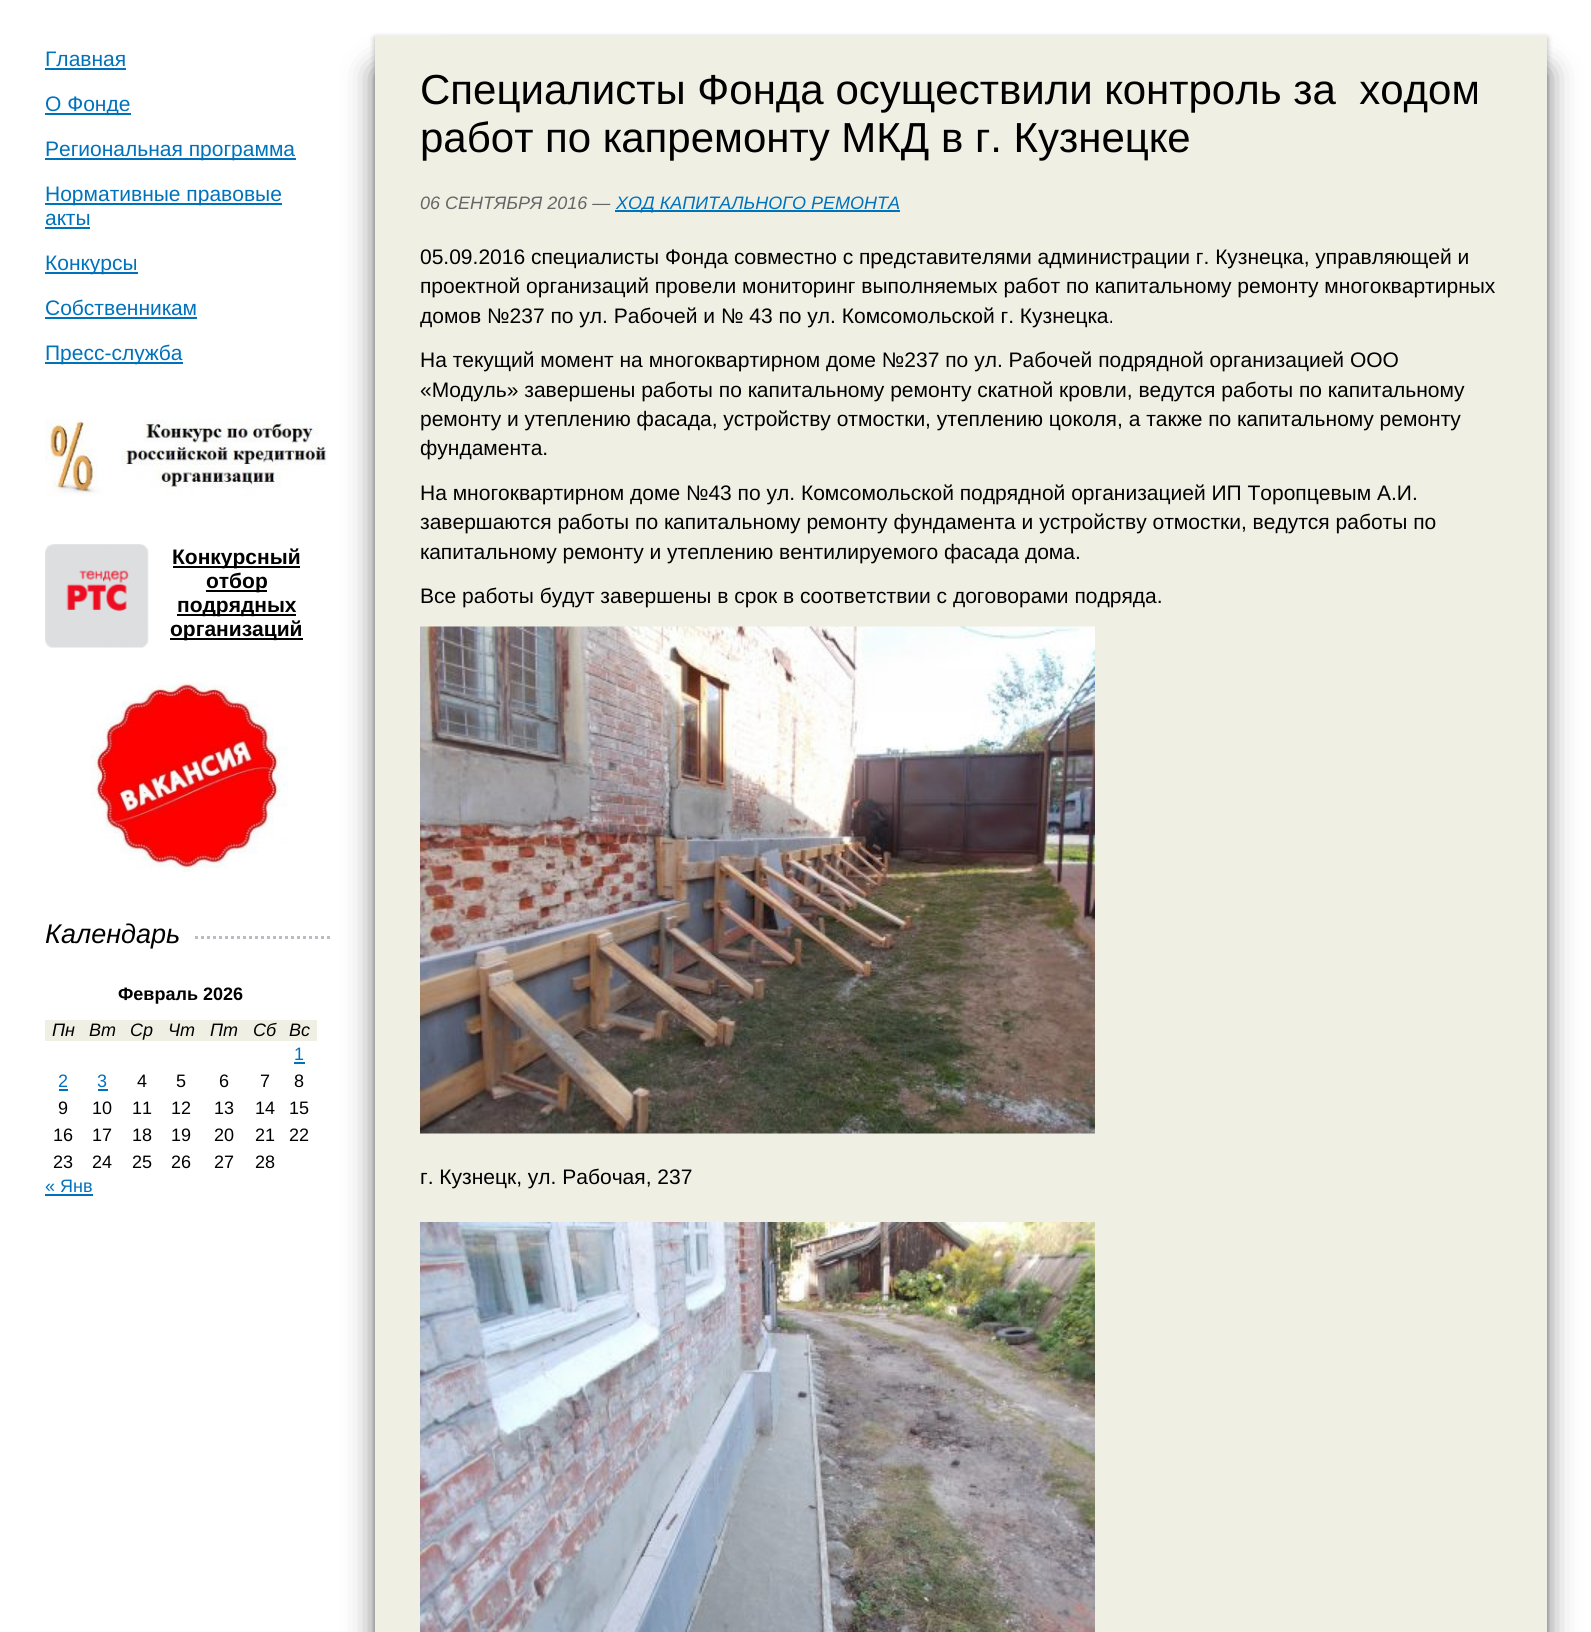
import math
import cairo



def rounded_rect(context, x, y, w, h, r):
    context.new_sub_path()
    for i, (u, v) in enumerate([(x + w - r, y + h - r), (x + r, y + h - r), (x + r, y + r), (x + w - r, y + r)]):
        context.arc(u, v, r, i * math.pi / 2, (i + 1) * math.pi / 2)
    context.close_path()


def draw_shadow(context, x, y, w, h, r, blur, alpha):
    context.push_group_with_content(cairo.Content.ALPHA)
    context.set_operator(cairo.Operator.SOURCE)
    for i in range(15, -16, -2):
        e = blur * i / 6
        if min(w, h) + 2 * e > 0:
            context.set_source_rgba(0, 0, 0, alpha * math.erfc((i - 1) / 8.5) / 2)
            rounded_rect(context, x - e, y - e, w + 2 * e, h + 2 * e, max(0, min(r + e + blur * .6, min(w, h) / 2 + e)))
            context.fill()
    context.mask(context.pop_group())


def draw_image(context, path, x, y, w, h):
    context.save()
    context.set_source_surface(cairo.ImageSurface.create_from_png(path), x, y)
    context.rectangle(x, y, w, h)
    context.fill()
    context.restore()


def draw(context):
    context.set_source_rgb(1, 1, 1)
    context.paint()
    context.set_source_rgb(0, 114 / 255, 188 / 255)
    context.rectangle(45, 68, 81, 2)
    context.fill()
    context.rectangle(45, 113, 86, 2)
    context.fill()
    context.rectangle(45, 158, 251, 2)
    context.fill()
    context.rectangle(45, 203, 237, 2)
    context.fill()
    context.rectangle(45, 227, 45, 2)
    context.fill()
    context.rectangle(45, 272, 93, 2)
    context.fill()
    context.rectangle(45, 317, 152, 2)
    context.fill()
    context.rectangle(45, 362, 138, 2)
    context.fill()
    draw_image(context, "images/1.png", 45, 419, 282, 77)
    draw_image(context, "images/2.png", 45, 544, 104, 104)
    context.set_source_rgb(0, 0, 0)
    context.rectangle(173, 566, 127, 2)
    context.fill()
    context.rectangle(206, 590, 61, 2)
    context.fill()
    context.rectangle(177, 614, 119, 2)
    context.fill()
    context.rectangle(170, 638, 133, 2)
    context.fill()
    draw_image(context, "images/3.png", 90, 681, 198, 191)
    context.new_path()
    context.move_to(45, 937.5)
    context.line_to(330, 937.5)
    context.set_source_rgb(187 / 255, 189 / 255, 197 / 255)
    context.set_line_width(3)
    context.set_dash([3, 3])
    context.stroke()
    context.set_source_rgb(1, 1, 1)
    context.rectangle(45, 936, 147, 3)
    context.fill()
    context.set_source_rgb(239 / 255, 239 / 255, 228 / 255)
    context.rectangle(45, 1020, 272, 21)
    context.fill()
    context.set_source_rgb(0, 114 / 255, 188 / 255)
    context.rectangle(294, 1062, 11, 2)
    context.fill()
    context.rectangle(59, 1089, 9, 2)
    context.fill()
    context.rectangle(98, 1089, 10, 2)
    context.fill()
    context.rectangle(45, 1194, 48, 2)
    context.fill()
    context.set_source_rgb(0, 0, 0)
    draw_shadow(context, 444, 71, 1103, 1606, 0, 15, 0.5)
    draw_shadow(context, 375, 71, 1103, 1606, 0, 15, 0.5)
    draw_shadow(context, 375, 38, 1172, 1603, 0, 3, 0.3)
    context.set_source_rgb(239 / 255, 239 / 255, 228 / 255)
    context.rectangle(375, 36, 1172, 1596)
    context.fill()
    context.set_source_rgb(0, 114 / 255, 188 / 255)
    context.rectangle(615, 210, 285, 2)
    context.fill()
    draw_image(context, "images/4.png", 420, 626, 675, 508)
    draw_image(context, "images/5.png", 420, 1222, 675, 410)
    context.select_font_face("Liberation Sans")
    context.set_font_size(21)
    context.move_to(45, 66)
    context.show_text("Главная")
    context.move_to(45, 111)
    context.show_text("О Фонде")
    context.move_to(45, 156)
    context.show_text("Региональная программа")
    context.move_to(45, 201)
    context.show_text("Нормативные правовые")
    context.move_to(45, 225)
    context.show_text("акты")
    context.move_to(45, 270)
    context.show_text("Конкурсы")
    context.move_to(45, 315)
    context.show_text("Собственникам")
    context.move_to(45, 360)
    context.show_text("Пресс-служба")
    context.select_font_face("Liberation Sans", cairo.FontSlant.NORMAL, cairo.FontWeight.BOLD)
    context.set_source_rgb(0, 0, 0)
    context.move_to(172, 564)
    context.show_text("Конкурсный")
    context.move_to(206, 588)
    context.show_text("отбор")
    context.move_to(177, 612)
    context.show_text("подрядных")
    context.move_to(170, 636)
    context.show_text("организаций")
    context.select_font_face("Liberation Sans", cairo.FontSlant.ITALIC)
    context.set_font_size(27)
    context.move_to(45, 943)
    context.show_text("Календарь")
    context.select_font_face("Liberation Sans", cairo.FontSlant.NORMAL, cairo.FontWeight.BOLD)
    context.set_font_size(18)
    context.move_to(118, 1000)
    context.show_text("Февраль 2026")
    context.select_font_face("Liberation Sans", cairo.FontSlant.ITALIC)
    context.move_to(52, 1036)
    context.show_text("Пн")
    context.move_to(89, 1036)
    context.show_text("Вт")
    context.move_to(130, 1036)
    context.show_text("Ср")
    context.move_to(168, 1036)
    context.show_text("Чт")
    context.move_to(210, 1036)
    context.show_text("Пт")
    context.move_to(253, 1036)
    context.show_text("Сб")
    context.move_to(289, 1036)
    context.show_text("Вс")
    context.select_font_face("Liberation Sans")
    context.set_source_rgb(0, 114 / 255, 188 / 255)
    context.move_to(294, 1060)
    context.show_text("1")
    context.move_to(58, 1087)
    context.show_text("2")
    context.move_to(97, 1087)
    context.show_text("3")
    context.set_source_rgb(0, 0, 0)
    context.move_to(137, 1087)
    context.show_text("4")
    context.move_to(176, 1087)
    context.show_text("5")
    context.move_to(219, 1087)
    context.show_text("6")
    context.move_to(260, 1087)
    context.show_text("7")
    context.move_to(294, 1087)
    context.show_text("8")
    context.move_to(58, 1114)
    context.show_text("9")
    context.move_to(92, 1114)
    context.show_text("10")
    context.move_to(132, 1114)
    context.show_text("11")
    context.move_to(171, 1114)
    context.show_text("12")
    context.move_to(214, 1114)
    context.show_text("13")
    context.move_to(255, 1114)
    context.show_text("14")
    context.move_to(289, 1114)
    context.show_text("15")
    context.move_to(53, 1141)
    context.show_text("16")
    context.move_to(92, 1141)
    context.show_text("17")
    context.move_to(132, 1141)
    context.show_text("18")
    context.move_to(171, 1141)
    context.show_text("19")
    context.move_to(214, 1141)
    context.show_text("20")
    context.move_to(255, 1141)
    context.show_text("21")
    context.move_to(289, 1141)
    context.show_text("22")
    context.move_to(53, 1168)
    context.show_text("23")
    context.move_to(92, 1168)
    context.show_text("24")
    context.move_to(132, 1168)
    context.show_text("25")
    context.move_to(171, 1168)
    context.show_text("26")
    context.move_to(214, 1168)
    context.show_text("27")
    context.move_to(255, 1168)
    context.show_text("28")
    context.set_source_rgb(0, 114 / 255, 188 / 255)
    context.move_to(45, 1192)
    context.show_text("« Янв")
    context.set_font_size(42)
    context.set_source_rgb(0, 0, 0)
    context.move_to(420, 104)
    context.show_text("Специалисты Фонда осуществили контроль за  ходом")
    context.move_to(420, 152)
    context.show_text("работ по капремонту МКД в г. Кузнецке")
    context.select_font_face("Liberation Sans", cairo.FontSlant.ITALIC)
    context.set_font_size(18)
    context.set_source_rgb(102 / 255, 102 / 255, 102 / 255)
    context.move_to(420, 209)
    context.show_text("06 СЕНТЯБРЯ 2016 —")
    context.set_source_rgb(0, 114 / 255, 188 / 255)
    context.move_to(616, 209)
    context.show_text("ХОД КАПИТАЛЬНОГО РЕМОНТА")
    context.select_font_face("Liberation Sans")
    context.set_font_size(21)
    context.set_source_rgb(0, 0, 0)
    context.move_to(420, 264)
    context.show_text("05.09.2016 специалисты Фонда совместно с представителями администрации г. Кузнецка, управляющей и")
    context.move_to(420, 293)
    context.show_text("проектной организаций провели мониторинг выполняемых работ по капитальному ремонту многоквартирных")
    context.move_to(420, 323)
    context.show_text("домов №237 по ул. Рабочей и № 43 по ул. Комсомольской г. Кузнецка.")
    context.move_to(420, 367)
    context.show_text("На текущий момент на многоквартирном доме №237 по ул. Рабочей подрядной организацией ООО")
    context.move_to(420, 397)
    context.show_text("«Модуль» завершены работы по капитальному ремонту скатной кровли, ведутся работы по капитальному")
    context.move_to(420, 426)
    context.show_text("ремонту и утеплению фасада, устройству отмостки, утеплению цоколя, а также по капитальному ремонту")
    context.move_to(420, 455)
    context.show_text("фундамента.")
    context.move_to(420, 500)
    context.show_text("На многоквартирном доме №43 по ул. Комсомольской подрядной организацией ИП Торопцевым А.И.")
    context.move_to(420, 529)
    context.show_text("завершаются работы по капитальному ремонту фундамента и устройству отмостки, ведутся работы по")
    context.move_to(420, 559)
    context.show_text("капитальному ремонту и утеплению вентилируемого фасада дома.")
    context.move_to(420, 603)
    context.show_text("Все работы будут завершены в срок в соответствии с договорами подряда.")
    context.move_to(420, 1184)
    context.show_text("г. Кузнецк, ул. Рабочая, 237")


surface = cairo.ImageSurface(cairo.Format.RGB24, 1591, 1632)
context = cairo.Context(surface)
options = cairo.FontOptions()
options.set_hint_metrics(cairo.HintMetrics.OFF)
options.set_hint_style(cairo.HintStyle.NONE)
context.set_font_options(options)
context.set_miter_limit(4)
draw(context)
surface.write_to_png("out.png")
